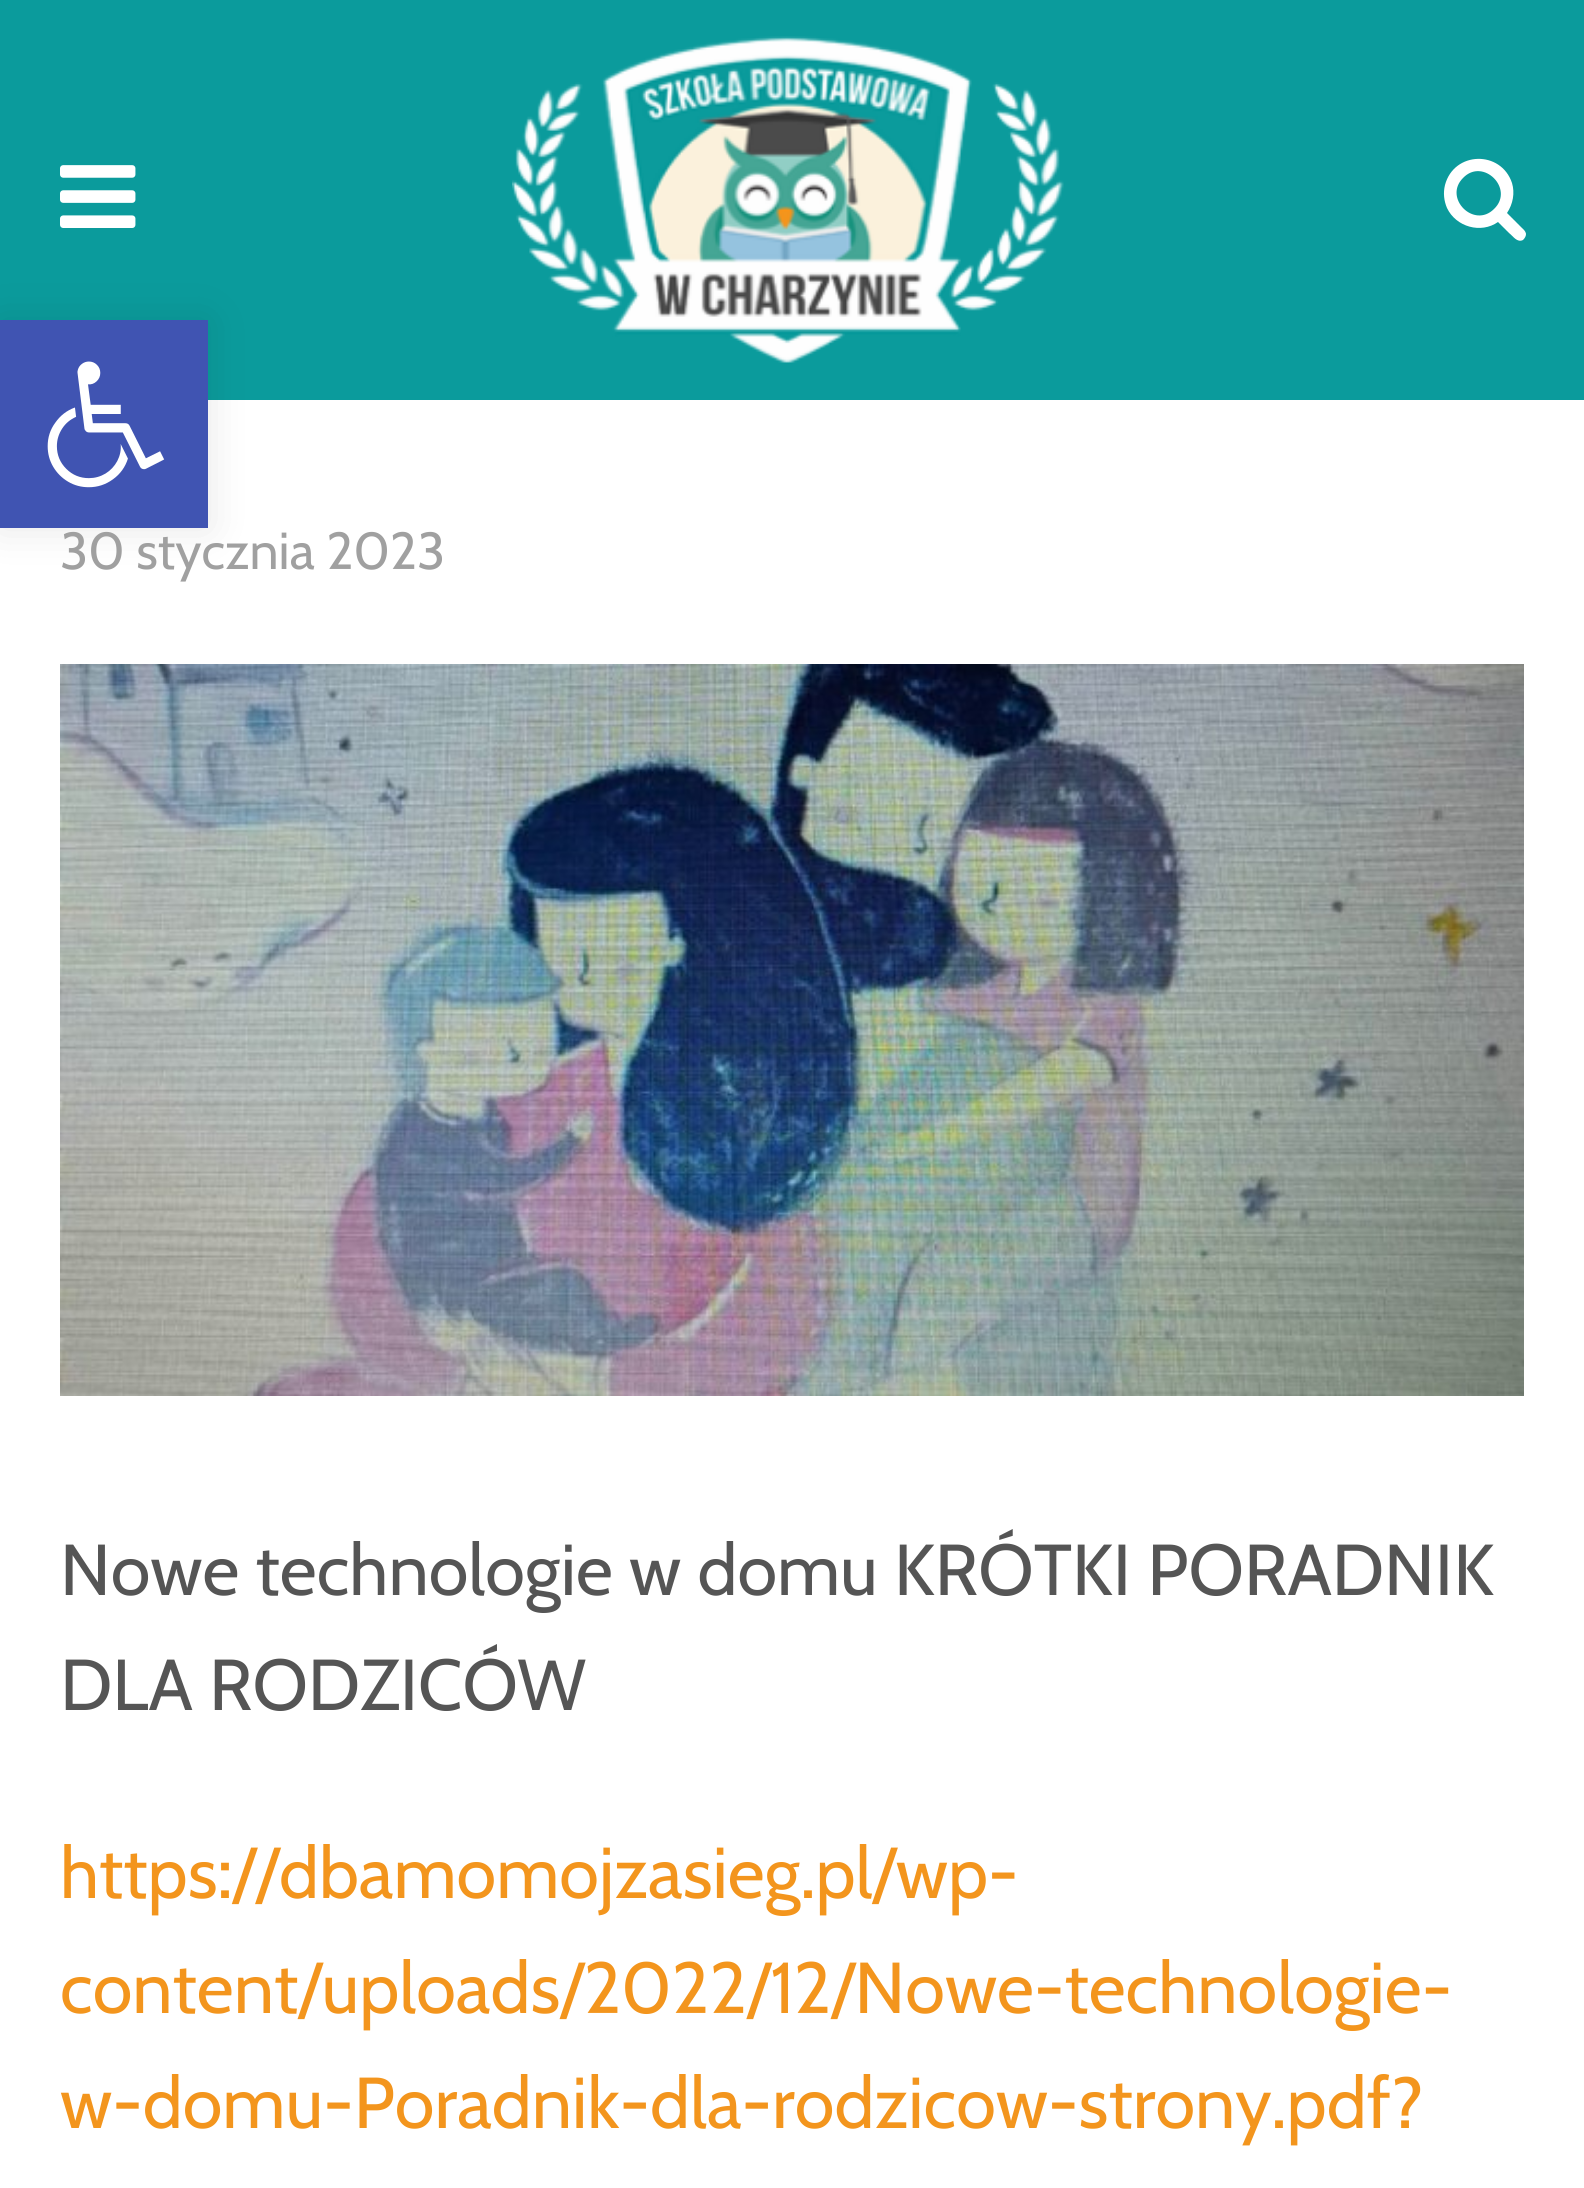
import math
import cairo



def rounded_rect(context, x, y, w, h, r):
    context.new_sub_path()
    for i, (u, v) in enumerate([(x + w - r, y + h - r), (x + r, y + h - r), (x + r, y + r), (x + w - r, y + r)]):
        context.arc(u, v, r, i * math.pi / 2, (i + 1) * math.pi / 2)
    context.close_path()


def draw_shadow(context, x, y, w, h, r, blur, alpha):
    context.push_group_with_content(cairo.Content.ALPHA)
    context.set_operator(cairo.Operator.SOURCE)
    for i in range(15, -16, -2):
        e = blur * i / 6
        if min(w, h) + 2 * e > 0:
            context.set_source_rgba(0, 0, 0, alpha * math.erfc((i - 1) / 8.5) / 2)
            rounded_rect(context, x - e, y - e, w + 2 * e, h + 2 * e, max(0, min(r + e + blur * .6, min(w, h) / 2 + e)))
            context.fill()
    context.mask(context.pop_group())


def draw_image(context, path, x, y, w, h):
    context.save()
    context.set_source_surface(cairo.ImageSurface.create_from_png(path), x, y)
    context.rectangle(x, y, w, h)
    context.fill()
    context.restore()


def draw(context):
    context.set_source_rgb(1, 1, 1)
    context.paint()
    context.set_source_rgb(11 / 255, 155 / 255, 156 / 255)
    context.rectangle(0, 0, 1584, 400)
    context.fill()
    context.set_source_rgb(0, 0, 0)
    draw_shadow(context, 0, 320, 208, 208, 0, 20, 0.1)
    context.set_source_rgb(64 / 255, 84 / 255, 178 / 255)
    context.rectangle(0, 320, 208, 208)
    context.fill()
    draw_image(context, "images/1.png", 47, 361, 118, 127)
    draw_image(context, "images/2.png", 60, 165, 76, 63)
    draw_image(context, "images/3.png", 512, 36, 552, 327)
    context.set_source_rgb(1, 1, 1)
    context.new_path()
    context.move_to(1494, 209)
    context.curve_to(1515, 189, 1483, 157, 1463, 178)
    context.curve_to(1443, 198, 1474, 229, 1494, 209)
    context.close_path()
    context.move_to(1526, 234)
    context.curve_to(1526, 236, 1525, 238, 1523, 240)
    context.curve_to(1517, 243, 1513, 236, 1509, 233)
    context.line_to(1498, 222)
    context.curve_to(1481, 234, 1456, 227, 1447, 208)
    context.curve_to(1444, 201, 1443, 193, 1445, 185)
    context.curve_to(1454, 151, 1501, 150, 1512, 183)
    context.curve_to(1515, 193, 1513, 204, 1507, 213)
    context.line_to(1524, 230)
    context.curve_to(1525, 231, 1526, 233, 1526, 234)
    context.close_path()
    context.fill()
    draw_image(context, "images/4.png", 60, 664, 1464, 732)
    context.select_font_face("Cabin")
    context.set_font_size(52)
    context.set_source_rgb(160 / 255, 160 / 255, 160 / 255)
    context.move_to(60, 569)
    context.show_text("30 stycznia 2023")
    context.set_font_size(72)
    context.set_source_rgb(85 / 255, 85 / 255, 85 / 255)
    context.move_to(60, 1595)
    context.show_text("Nowe technologie w domu KRÓTKI PORADNIK")
    context.move_to(60, 1710)
    context.show_text("DLA RODZICÓW")
    context.set_source_rgb(243 / 255, 149 / 255, 29 / 255)
    context.move_to(60, 1898)
    context.show_text("https://dbamomojzasieg.pl/wp-")
    context.move_to(60, 2013)
    context.show_text("content/uploads/2022/12/Nowe-technologie-")
    context.move_to(60, 2128)
    context.show_text("w-domu-Poradnik-dla-rodzicow-strony.pdf?")


surface = cairo.ImageSurface(cairo.Format.RGB24, 1584, 2188)
context = cairo.Context(surface)
options = cairo.FontOptions()
options.set_hint_metrics(cairo.HintMetrics.OFF)
options.set_hint_style(cairo.HintStyle.NONE)
context.set_font_options(options)
context.set_miter_limit(4)
draw(context)
surface.write_to_png("out.png")
